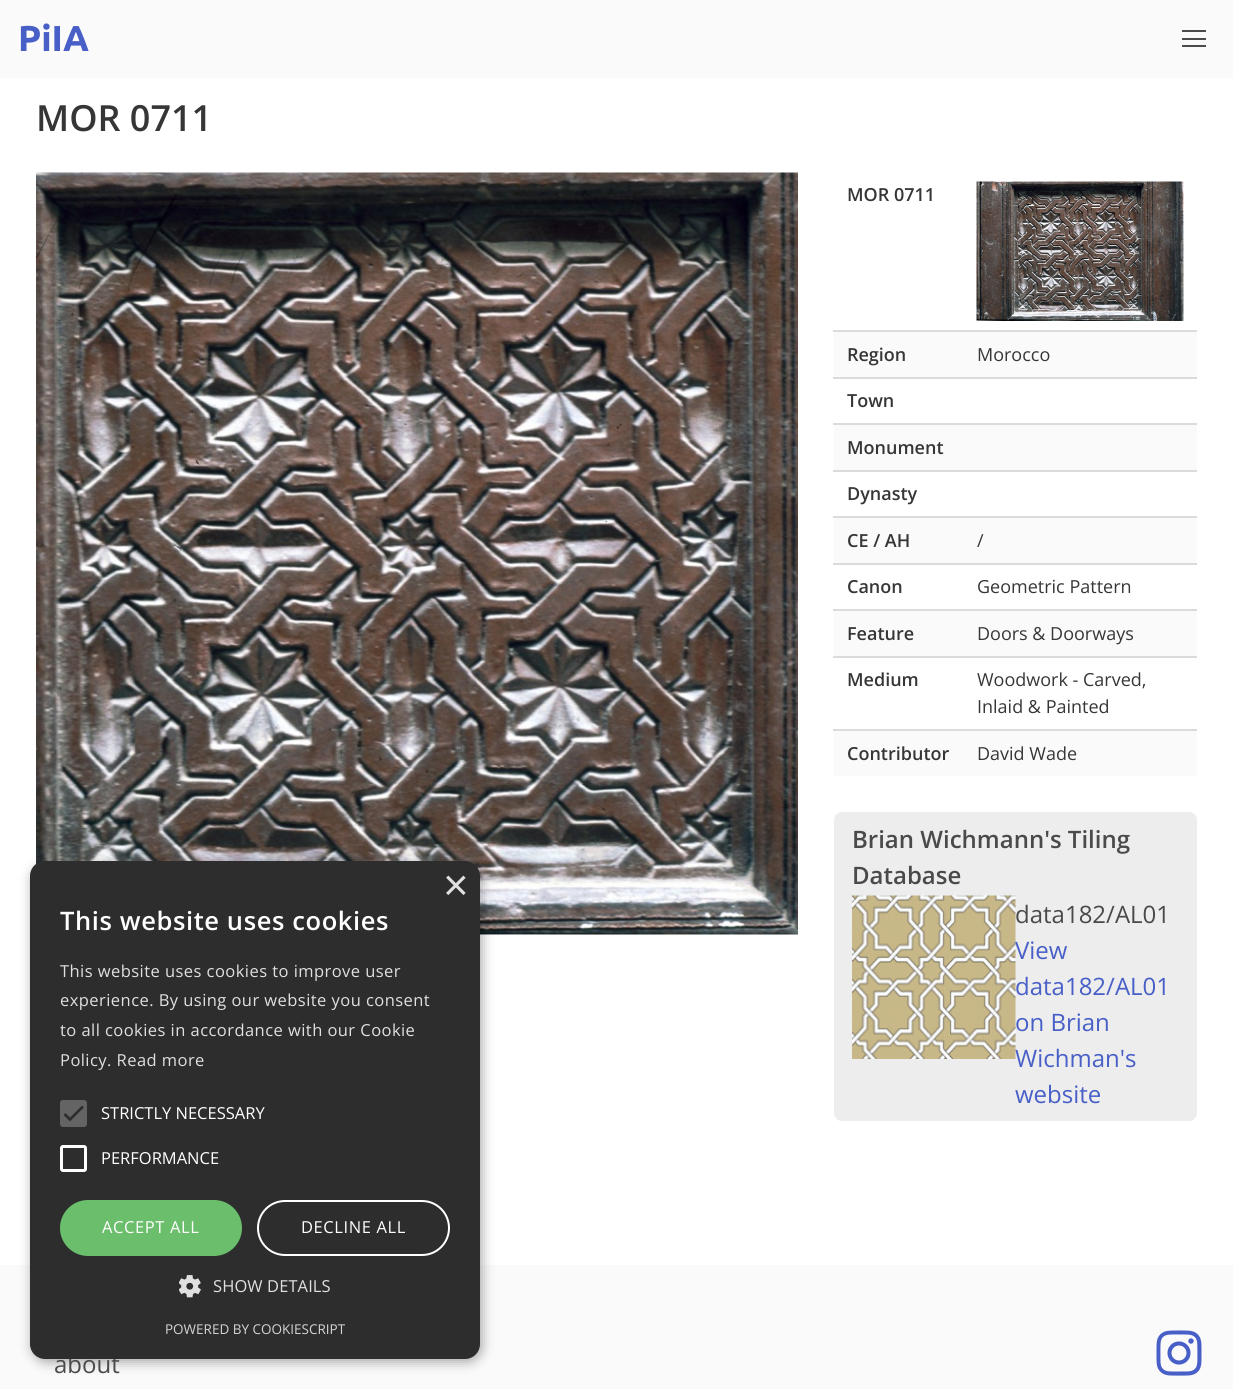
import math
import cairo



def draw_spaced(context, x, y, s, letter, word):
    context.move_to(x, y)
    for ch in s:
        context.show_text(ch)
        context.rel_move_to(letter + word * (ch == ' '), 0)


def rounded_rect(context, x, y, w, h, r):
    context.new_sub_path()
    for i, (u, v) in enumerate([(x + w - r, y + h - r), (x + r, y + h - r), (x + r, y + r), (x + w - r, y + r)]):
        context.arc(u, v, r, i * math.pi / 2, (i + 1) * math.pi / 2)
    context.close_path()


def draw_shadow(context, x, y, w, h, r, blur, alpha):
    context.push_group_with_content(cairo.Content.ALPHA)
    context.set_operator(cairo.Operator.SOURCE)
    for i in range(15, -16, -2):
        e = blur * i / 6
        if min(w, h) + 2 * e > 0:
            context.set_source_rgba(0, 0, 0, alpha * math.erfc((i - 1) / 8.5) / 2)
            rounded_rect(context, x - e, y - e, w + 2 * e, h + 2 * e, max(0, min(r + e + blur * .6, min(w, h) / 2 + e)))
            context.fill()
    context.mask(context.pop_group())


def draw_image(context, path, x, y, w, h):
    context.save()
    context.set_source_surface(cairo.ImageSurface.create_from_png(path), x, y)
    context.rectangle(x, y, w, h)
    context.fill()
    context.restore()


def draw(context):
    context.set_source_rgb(1, 1, 1)
    context.paint()
    context.set_source_rgb(250 / 255, 250 / 255, 250 / 255)
    context.rectangle(0, 0, 1233, 78)
    context.fill()
    context.set_source_rgb(74 / 255, 74 / 255, 74 / 255)
    context.rectangle(1182, 30, 24, 2)
    context.fill()
    context.rectangle(1182, 38, 24, 2)
    context.fill()
    context.rectangle(1182, 45, 24, 2)
    context.fill()
    draw_image(context, "images/1.png", 36, 172, 762, 763)
    context.set_source_rgb(219 / 255, 219 / 255, 219 / 255)
    context.rectangle(833, 330, 364, 2)
    context.fill()
    draw_image(context, "images/2.png", 976, 181, 208, 140)
    context.set_source_rgb(250 / 255, 250 / 255, 250 / 255)
    context.rectangle(834, 332, 363, 45)
    context.fill()
    context.set_source_rgb(219 / 255, 219 / 255, 219 / 255)
    context.rectangle(833, 377, 364, 2)
    context.fill()
    context.rectangle(833, 423, 364, 2)
    context.fill()
    context.set_source_rgb(250 / 255, 250 / 255, 250 / 255)
    context.rectangle(834, 425, 363, 45)
    context.fill()
    context.set_source_rgb(219 / 255, 219 / 255, 219 / 255)
    context.rectangle(833, 470, 364, 2)
    context.fill()
    context.rectangle(833, 516, 364, 2)
    context.fill()
    context.set_source_rgb(250 / 255, 250 / 255, 250 / 255)
    context.rectangle(834, 518, 363, 45)
    context.fill()
    context.set_source_rgb(219 / 255, 219 / 255, 219 / 255)
    context.rectangle(833, 563, 364, 2)
    context.fill()
    context.rectangle(833, 609, 364, 2)
    context.fill()
    context.set_source_rgb(250 / 255, 250 / 255, 250 / 255)
    context.rectangle(834, 611, 363, 45)
    context.fill()
    context.set_source_rgb(219 / 255, 219 / 255, 219 / 255)
    context.rectangle(833, 656, 364, 2)
    context.fill()
    context.rectangle(833, 729, 364, 2)
    context.fill()
    context.set_source_rgb(250 / 255, 250 / 255, 250 / 255)
    context.rectangle(834, 731, 363, 45)
    context.fill()
    context.set_source_rgb(237 / 255, 237 / 255, 237 / 255)
    rounded_rect(context, 834, 812, 363, 309, 8)
    context.fill()
    draw_image(context, "images/3.png", 852, 895, 164, 164)
    context.set_source_rgb(250 / 255, 250 / 255, 250 / 255)
    context.rectangle(0, 1265, 1233, 124)
    context.fill()
    draw_image(context, "images/4.png", 1156, 1330, 46, 46)
    context.set_source_rgb(0, 0, 0)
    draw_shadow(context, 32, 864, 450, 498, 15, 6, 0.35)
    context.select_font_face("Ubuntu", cairo.FontSlant.NORMAL, cairo.FontWeight.BOLD)
    context.set_font_size(36)
    context.set_source_rgb(72 / 255, 95 / 255, 199 / 255)
    context.move_to(18, 51)
    context.show_text("PiIA")
    context.select_font_face("Open Sans SemiBold")
    context.set_source_rgb(54 / 255, 54 / 255, 54 / 255)
    context.move_to(36, 131)
    context.show_text("MOR 0711")
    context.set_font_size(18)
    context.move_to(847, 201)
    context.show_text("MOR 0711")
    context.move_to(847, 361)
    context.show_text("Region")
    context.select_font_face("Open Sans")
    context.move_to(977, 361)
    context.show_text("Morocco")
    context.select_font_face("Open Sans SemiBold")
    context.move_to(847, 407)
    context.show_text("Town")
    context.move_to(847, 454)
    context.show_text("Monument")
    context.move_to(847, 500)
    context.show_text("Dynasty")
    context.move_to(847, 547)
    context.show_text("CE / AH")
    context.select_font_face("Open Sans")
    context.move_to(977, 547)
    context.show_text("/")
    context.select_font_face("Open Sans SemiBold")
    context.move_to(847, 593)
    context.show_text("Canon")
    context.select_font_face("Open Sans")
    context.move_to(977, 593)
    context.show_text("Geometric Pattern")
    context.select_font_face("Open Sans SemiBold")
    context.move_to(847, 640)
    context.show_text("Feature")
    context.select_font_face("Open Sans")
    context.move_to(977, 640)
    context.show_text("Doors & Doorways")
    context.select_font_face("Open Sans SemiBold")
    context.move_to(847, 686)
    context.show_text("Medium")
    context.select_font_face("Open Sans")
    context.move_to(977, 686)
    context.show_text("Woodwork - Carved,")
    context.move_to(977, 713)
    context.show_text("Inlaid & Painted")
    context.select_font_face("Open Sans SemiBold")
    context.move_to(847, 760)
    context.show_text("Contributor")
    context.select_font_face("Open Sans")
    context.move_to(977, 760)
    context.show_text("David Wade")
    context.select_font_face("Open Sans SemiBold")
    context.set_font_size(24)
    context.set_source_rgb(74 / 255, 74 / 255, 74 / 255)
    context.move_to(852, 848)
    context.show_text("Brian Wichmann's Tiling")
    context.move_to(852, 884)
    context.show_text("Database")
    context.select_font_face("Open Sans")
    context.move_to(1015, 923)
    context.show_text("data182/AL01")
    context.set_source_rgb(72 / 255, 95 / 255, 199 / 255)
    context.move_to(1015, 959)
    context.show_text("View")
    context.move_to(1015, 995)
    context.show_text("data182/AL01")
    context.move_to(1015, 1031)
    context.show_text("on Brian")
    context.move_to(1015, 1067)
    context.show_text("Wichman's")
    context.move_to(1015, 1103)
    context.show_text("website")
    context.set_source_rgb(74 / 255, 74 / 255, 74 / 255)
    context.move_to(54, 1373)
    context.show_text("about")
    context.set_source_rgb(45 / 255, 45 / 255, 45 / 255)
    rounded_rect(context, 30, 861, 450, 498, 15)
    context.fill()
    context.select_font_face("Liberation Sans")
    context.set_font_size(44)
    context.set_source_rgb(224 / 255, 224 / 255, 224 / 255)
    context.move_to(443, 900)
    context.show_text("×")
    context.select_font_face("Open Sans SemiBold")
    context.set_font_size(25.5)
    context.set_source_rgb(1, 1, 1)
    draw_spaced(context, 60, 930, "This website uses cookies", 0.6, 0)
    context.select_font_face("Open Sans")
    context.set_font_size(16.5)
    context.set_source_rgb(224 / 255, 224 / 255, 224 / 255)
    draw_spaced(context, 60, 977, "This website uses cookies to improve user", 0.45, 0)
    draw_spaced(context, 60, 1006, "experience. By using our website you consent", 0.45, 0)
    draw_spaced(context, 60, 1036, "to all cookies in accordance with our Cookie", 0.45, 0)
    draw_spaced(context, 60, 1066, "Policy. Read more", 0.45, 0)
    context.set_source_rgb(100 / 255, 100 / 255, 100 / 255)
    rounded_rect(context, 60, 1100, 27, 27, 3)
    context.fill()
    context.new_path()
    context.move_to(64.5, 1114)
    context.line_to(70, 1119.5)
    context.line_to(83, 1106.5)
    context.set_source_rgb(45 / 255, 45 / 255, 45 / 255)
    context.set_line_width(2.7)
    context.stroke()
    context.set_source_rgb(1, 1, 1)
    context.move_to(101, 1119)
    context.show_text("STRICTLY NECESSARY")
    rounded_rect(context, 61.5, 1146.5, 24, 24, 1.5)
    context.set_line_width(3)
    context.stroke()
    context.move_to(101, 1164)
    context.show_text("PERFORMANCE")
    context.set_source_rgb(107 / 255, 190 / 255, 107 / 255)
    rounded_rect(context, 60, 1200, 182, 56, 28)
    context.fill()
    context.set_source_rgb(1, 1, 1)
    draw_spaced(context, 102, 1233, "ACCEPT ALL", 0.6, 0)
    rounded_rect(context, 258, 1201, 191, 54, 27)
    context.set_line_width(2)
    context.stroke()
    draw_spaced(context, 301, 1233, "DECLINE ALL", 0.6, 0)
    draw_image(context, "images/5.png", 179, 1275, 22, 23)
    context.set_source_rgb(224 / 255, 224 / 255, 224 / 255)
    draw_spaced(context, 213, 1292, "SHOW DETAILS", 0.1, 0)
    context.set_font_size(13.5)
    context.set_source_rgb(213 / 255, 213 / 255, 213 / 255)
    context.move_to(165, 1334)
    context.show_text("POWERED BY COOKIESCRIPT")


surface = cairo.ImageSurface(cairo.Format.RGB24, 1233, 1389)
context = cairo.Context(surface)
options = cairo.FontOptions()
options.set_hint_metrics(cairo.HintMetrics.OFF)
options.set_hint_style(cairo.HintStyle.NONE)
context.set_font_options(options)
context.set_miter_limit(4)
draw(context)
surface.write_to_png("out.png")
